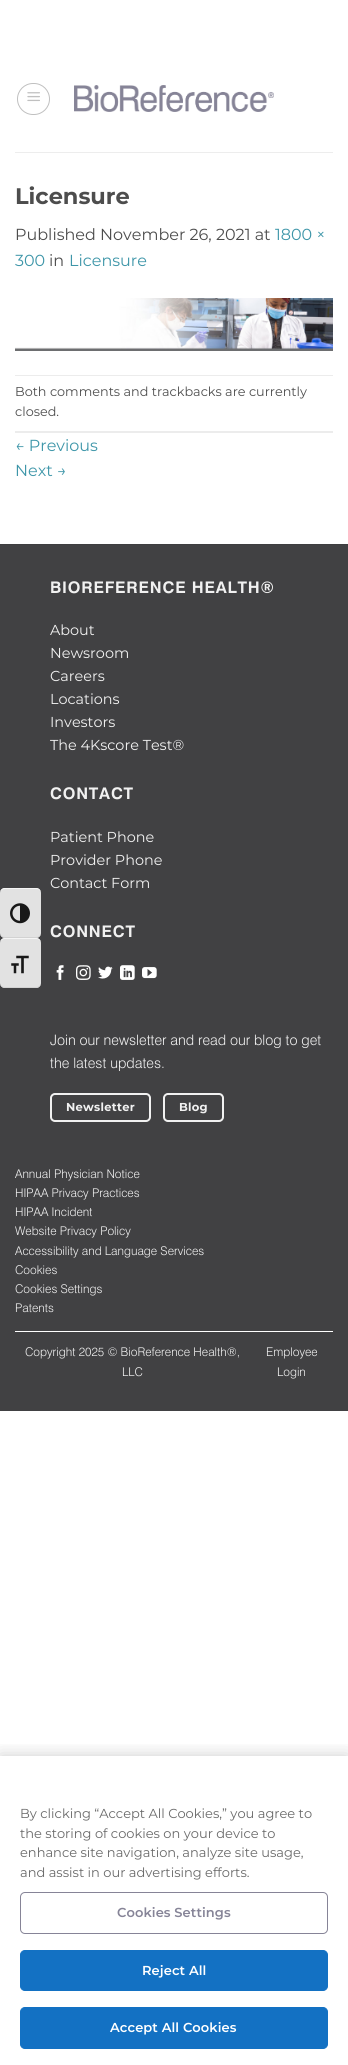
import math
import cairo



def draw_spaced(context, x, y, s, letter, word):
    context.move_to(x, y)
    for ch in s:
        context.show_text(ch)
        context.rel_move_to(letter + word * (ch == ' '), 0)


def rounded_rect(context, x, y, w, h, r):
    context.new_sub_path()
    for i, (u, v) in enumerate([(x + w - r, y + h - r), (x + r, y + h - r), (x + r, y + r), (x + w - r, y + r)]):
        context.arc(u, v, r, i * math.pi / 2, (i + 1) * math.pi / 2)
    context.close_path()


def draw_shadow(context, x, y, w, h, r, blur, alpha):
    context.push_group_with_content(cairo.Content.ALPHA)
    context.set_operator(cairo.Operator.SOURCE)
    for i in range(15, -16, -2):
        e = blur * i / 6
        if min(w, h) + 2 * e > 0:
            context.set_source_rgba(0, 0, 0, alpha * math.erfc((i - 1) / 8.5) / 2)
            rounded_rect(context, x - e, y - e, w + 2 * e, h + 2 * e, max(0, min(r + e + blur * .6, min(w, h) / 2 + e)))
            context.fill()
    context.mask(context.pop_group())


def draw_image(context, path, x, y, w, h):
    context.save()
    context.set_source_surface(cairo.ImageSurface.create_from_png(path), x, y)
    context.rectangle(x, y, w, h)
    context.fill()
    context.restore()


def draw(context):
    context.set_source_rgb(1, 1, 1)
    context.paint()
    rounded_rect(context, 17.5, 83.5, 32, 31, 15.5)
    context.set_source_rgb(192 / 255, 192 / 255, 192 / 255)
    context.set_line_width(1)
    context.stroke()
    draw_image(context, "images/1.png", 27, 92, 13, 10)
    draw_image(context, "images/2.png", 74, 85, 200, 27)
    context.set_source_rgb(237 / 255, 237 / 255, 237 / 255)
    context.rectangle(15, 152, 318, 1)
    context.fill()
    draw_image(context, "images/3.png", 15, 298, 318, 53)
    context.set_source_rgb(236 / 255, 236 / 255, 236 / 255)
    context.rectangle(15, 375, 318, 1)
    context.fill()
    context.rectangle(15, 431, 318, 2)
    context.fill()
    context.set_source_rgb(65 / 255, 65 / 255, 67 / 255)
    context.rectangle(0, 545, 348, 866)
    context.fill()
    context.set_source_rgb(62 / 255, 62 / 255, 64 / 255)
    context.rectangle(0, 544, 348, 1)
    context.fill()
    draw_image(context, "images/4.png", 56, 965, 8, 15)
    draw_image(context, "images/5.png", 76, 965, 15, 15)
    draw_image(context, "images/6.png", 98, 966, 15, 13)
    draw_image(context, "images/7.png", 120, 965, 15, 15)
    draw_image(context, "images/8.png", 142, 967, 15, 12)
    rounded_rect(context, 51, 1094, 99, 27, 4)
    context.set_source_rgb(241 / 255, 241 / 255, 241 / 255)
    context.set_line_width(2)
    context.stroke()
    rounded_rect(context, 164, 1094, 59, 27, 4)
    context.stroke()
    context.set_source_rgb(1, 1, 1)
    context.rectangle(15, 1331, 318, 1)
    context.fill()
    context.set_source_rgb(226 / 255, 226 / 255, 226 / 255)
    rounded_rect(context, 0, 888, 41, 50, 5)
    context.fill()
    context.set_source_rgb(245 / 255, 245 / 255, 245 / 255)
    context.new_path()
    context.move_to(5, 888)
    context.curve_to(2, 888, 0, 890, 0, 893)
    context.curve_to(0, 891, 2, 889, 5, 889)
    context.line_to(36, 889)
    context.curve_to(39, 889, 41, 891, 41, 893)
    context.curve_to(41, 890, 39, 888, 36, 888)
    context.close_path()
    context.fill()
    context.set_source_rgb(210 / 255, 210 / 255, 210 / 255)
    context.new_path()
    context.move_to(36, 938)
    context.curve_to(39, 938, 41, 936, 41, 933)
    context.curve_to(41, 935, 39, 937, 36, 937)
    context.line_to(5, 937)
    context.curve_to(2, 937, 0, 935, 0, 933)
    context.curve_to(0, 936, 2, 938, 5, 938)
    context.close_path()
    context.fill()
    draw_image(context, "images/9.png", 10, 903, 20, 21)
    context.set_source_rgb(226 / 255, 226 / 255, 226 / 255)
    rounded_rect(context, 0, 938, 41, 50, 5)
    context.fill()
    context.set_source_rgb(245 / 255, 245 / 255, 245 / 255)
    context.new_path()
    context.move_to(5, 938)
    context.curve_to(2, 938, 0, 940, 0, 943)
    context.curve_to(0, 941, 2, 939, 5, 939)
    context.line_to(36, 939)
    context.curve_to(39, 939, 41, 941, 41, 943)
    context.curve_to(41, 940, 39, 938, 36, 938)
    context.close_path()
    context.fill()
    context.set_source_rgb(210 / 255, 210 / 255, 210 / 255)
    context.new_path()
    context.move_to(36, 988)
    context.curve_to(39, 988, 41, 986, 41, 983)
    context.curve_to(41, 985, 39, 987, 36, 987)
    context.line_to(5, 987)
    context.curve_to(2, 987, 0, 985, 0, 983)
    context.curve_to(0, 986, 2, 988, 5, 988)
    context.close_path()
    context.fill()
    draw_image(context, "images/10.png", 11, 955, 18, 19)
    context.save()
    context.rectangle(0, 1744, 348, 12)
    context.clip()
    context.set_source_rgb(0, 0, 0)
    draw_shadow(context, 0, 1756, 348, 309, 0, 9, 0.2)
    context.restore()
    rounded_rect(context, 20.5, 1892.5, 307, 41, 4.5)
    context.set_source_rgb(134 / 255, 132 / 255, 151 / 255)
    context.set_line_width(1)
    context.stroke()
    context.set_source_rgb(19 / 255, 113 / 255, 195 / 255)
    rounded_rect(context, 20.5, 1950.5, 307, 40, 4.5)
    context.fill_preserve()
    context.stroke()
    rounded_rect(context, 20.5, 2007.5, 307, 41, 4.5)
    context.fill_preserve()
    context.stroke()
    context.select_font_face("Montserrat", cairo.FontSlant.NORMAL, cairo.FontWeight.BOLD)
    context.set_font_size(22.5)
    context.set_source_rgb(77 / 255, 77 / 255, 77 / 255)
    context.move_to(15, 204)
    context.show_text("Licensure")
    context.select_font_face("Montserrat")
    context.set_font_size(16)
    context.move_to(15, 240)
    context.show_text("Published November 26, 2021 at")
    context.set_source_rgb(62 / 255, 150 / 255, 169 / 255)
    context.move_to(275, 240)
    context.show_text("1800 ×")
    context.move_to(15, 266)
    context.show_text("300")
    context.set_source_rgb(77 / 255, 77 / 255, 77 / 255)
    context.move_to(49, 266)
    context.show_text("in")
    context.set_source_rgb(62 / 255, 150 / 255, 169 / 255)
    context.move_to(69, 266)
    context.show_text("Licensure")
    context.set_font_size(12.8)
    context.set_source_rgb(77 / 255, 77 / 255, 77 / 255)
    context.move_to(15, 396)
    context.show_text("Both comments and trackbacks are currently")
    context.move_to(15, 416)
    context.show_text("closed.")
    context.set_font_size(16)
    context.set_source_rgb(62 / 255, 150 / 255, 169 / 255)
    context.move_to(15, 451)
    context.show_text("← Previous")
    context.move_to(15, 476)
    context.show_text("Next →")
    context.select_font_face("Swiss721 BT", cairo.FontSlant.NORMAL, cairo.FontWeight.BOLD)
    context.set_source_rgb(241 / 255, 241 / 255, 241 / 255)
    draw_spaced(context, 50, 593, "BIOREFERENCE HEALTH®", 0.8, 0)
    context.select_font_face("Montserrat")
    context.set_font_size(14.4)
    context.move_to(50, 635)
    context.show_text("About")
    context.move_to(50, 658)
    context.show_text("Newsroom")
    context.move_to(50, 681)
    context.show_text("Careers")
    context.move_to(50, 704)
    context.show_text("Locations")
    context.move_to(50, 727)
    context.show_text("Investors")
    context.move_to(50, 750)
    context.show_text("The 4Kscore Test®")
    context.select_font_face("Swiss721 BT", cairo.FontSlant.NORMAL, cairo.FontWeight.BOLD)
    context.set_font_size(16)
    draw_spaced(context, 50, 799, "CONTACT", 0.8, 0)
    context.select_font_face("Montserrat")
    context.set_font_size(14.4)
    context.move_to(50, 842)
    context.show_text("Patient Phone")
    context.move_to(50, 865)
    context.show_text("Provider Phone")
    context.move_to(50, 888)
    context.show_text("Contact Form")
    context.select_font_face("Swiss721 BT", cairo.FontSlant.NORMAL, cairo.FontWeight.BOLD)
    context.set_font_size(16)
    draw_spaced(context, 50, 937, "CONNECT", 0.8, 0)
    context.select_font_face("Swiss721 BT Light")
    context.set_font_size(14.4)
    context.move_to(50, 1045)
    context.show_text("Join our newsletter and read our blog to get")
    context.move_to(50, 1068)
    context.show_text("the latest updates.")
    context.select_font_face("Montserrat", cairo.FontSlant.NORMAL, cairo.FontWeight.BOLD)
    context.set_font_size(11.5)
    draw_spaced(context, 66, 1111, "Newsletter", 0.25, 0)
    draw_spaced(context, 179, 1111, "Blog", 0.25, 0)
    context.select_font_face("Swiss721 BT Light")
    context.set_font_size(12)
    context.move_to(15, 1178)
    context.show_text("Annual Physician Notice")
    context.move_to(15, 1197)
    context.show_text("HIPAA Privacy Practices")
    context.move_to(15, 1216)
    context.show_text("HIPAA Incident")
    context.move_to(15, 1235)
    context.show_text("Website Privacy Policy")
    context.move_to(15, 1255)
    context.show_text("Accessibility and Language Services")
    context.move_to(15, 1274)
    context.show_text("Cookies")
    context.move_to(15, 1293)
    context.show_text("Cookies Settings")
    context.move_to(15, 1312)
    context.show_text("Patents")
    context.move_to(25, 1356)
    context.show_text("Copyright 2025 © BioReference Health®,")
    context.move_to(122, 1376)
    context.show_text("LLC")
    context.move_to(266, 1356)
    context.show_text("Employee")
    context.move_to(277, 1376)
    context.show_text("Login")
    context.select_font_face("Montserrat")
    context.set_font_size(13)
    context.set_source_rgb(105 / 255, 105 / 255, 105 / 255)
    context.move_to(20, 1818)
    context.show_text("By clicking “Accept All Cookies,” you agree to")
    context.move_to(20, 1838)
    context.show_text("the storing of cookies on your device to")
    context.move_to(20, 1857)
    context.show_text("enhance site navigation, analyze site usage,")
    context.move_to(20, 1877)
    context.show_text("and assist in our advertising efforts.")
    context.select_font_face("Montserrat SemiBold")
    context.set_source_rgb(134 / 255, 132 / 255, 151 / 255)
    draw_spaced(context, 117, 1917, "Cookies Settings", 0.1, 0)
    context.set_source_rgb(1, 1, 1)
    draw_spaced(context, 142, 1975, "Reject All", 0.1, 0)
    draw_spaced(context, 110, 2032, "Accept All Cookies", 0.1, 0)


surface = cairo.ImageSurface(cairo.Format.RGB24, 348, 2065)
context = cairo.Context(surface)
options = cairo.FontOptions()
options.set_hint_metrics(cairo.HintMetrics.OFF)
options.set_hint_style(cairo.HintStyle.NONE)
context.set_font_options(options)
context.set_miter_limit(4)
draw(context)
surface.write_to_png("out.png")
